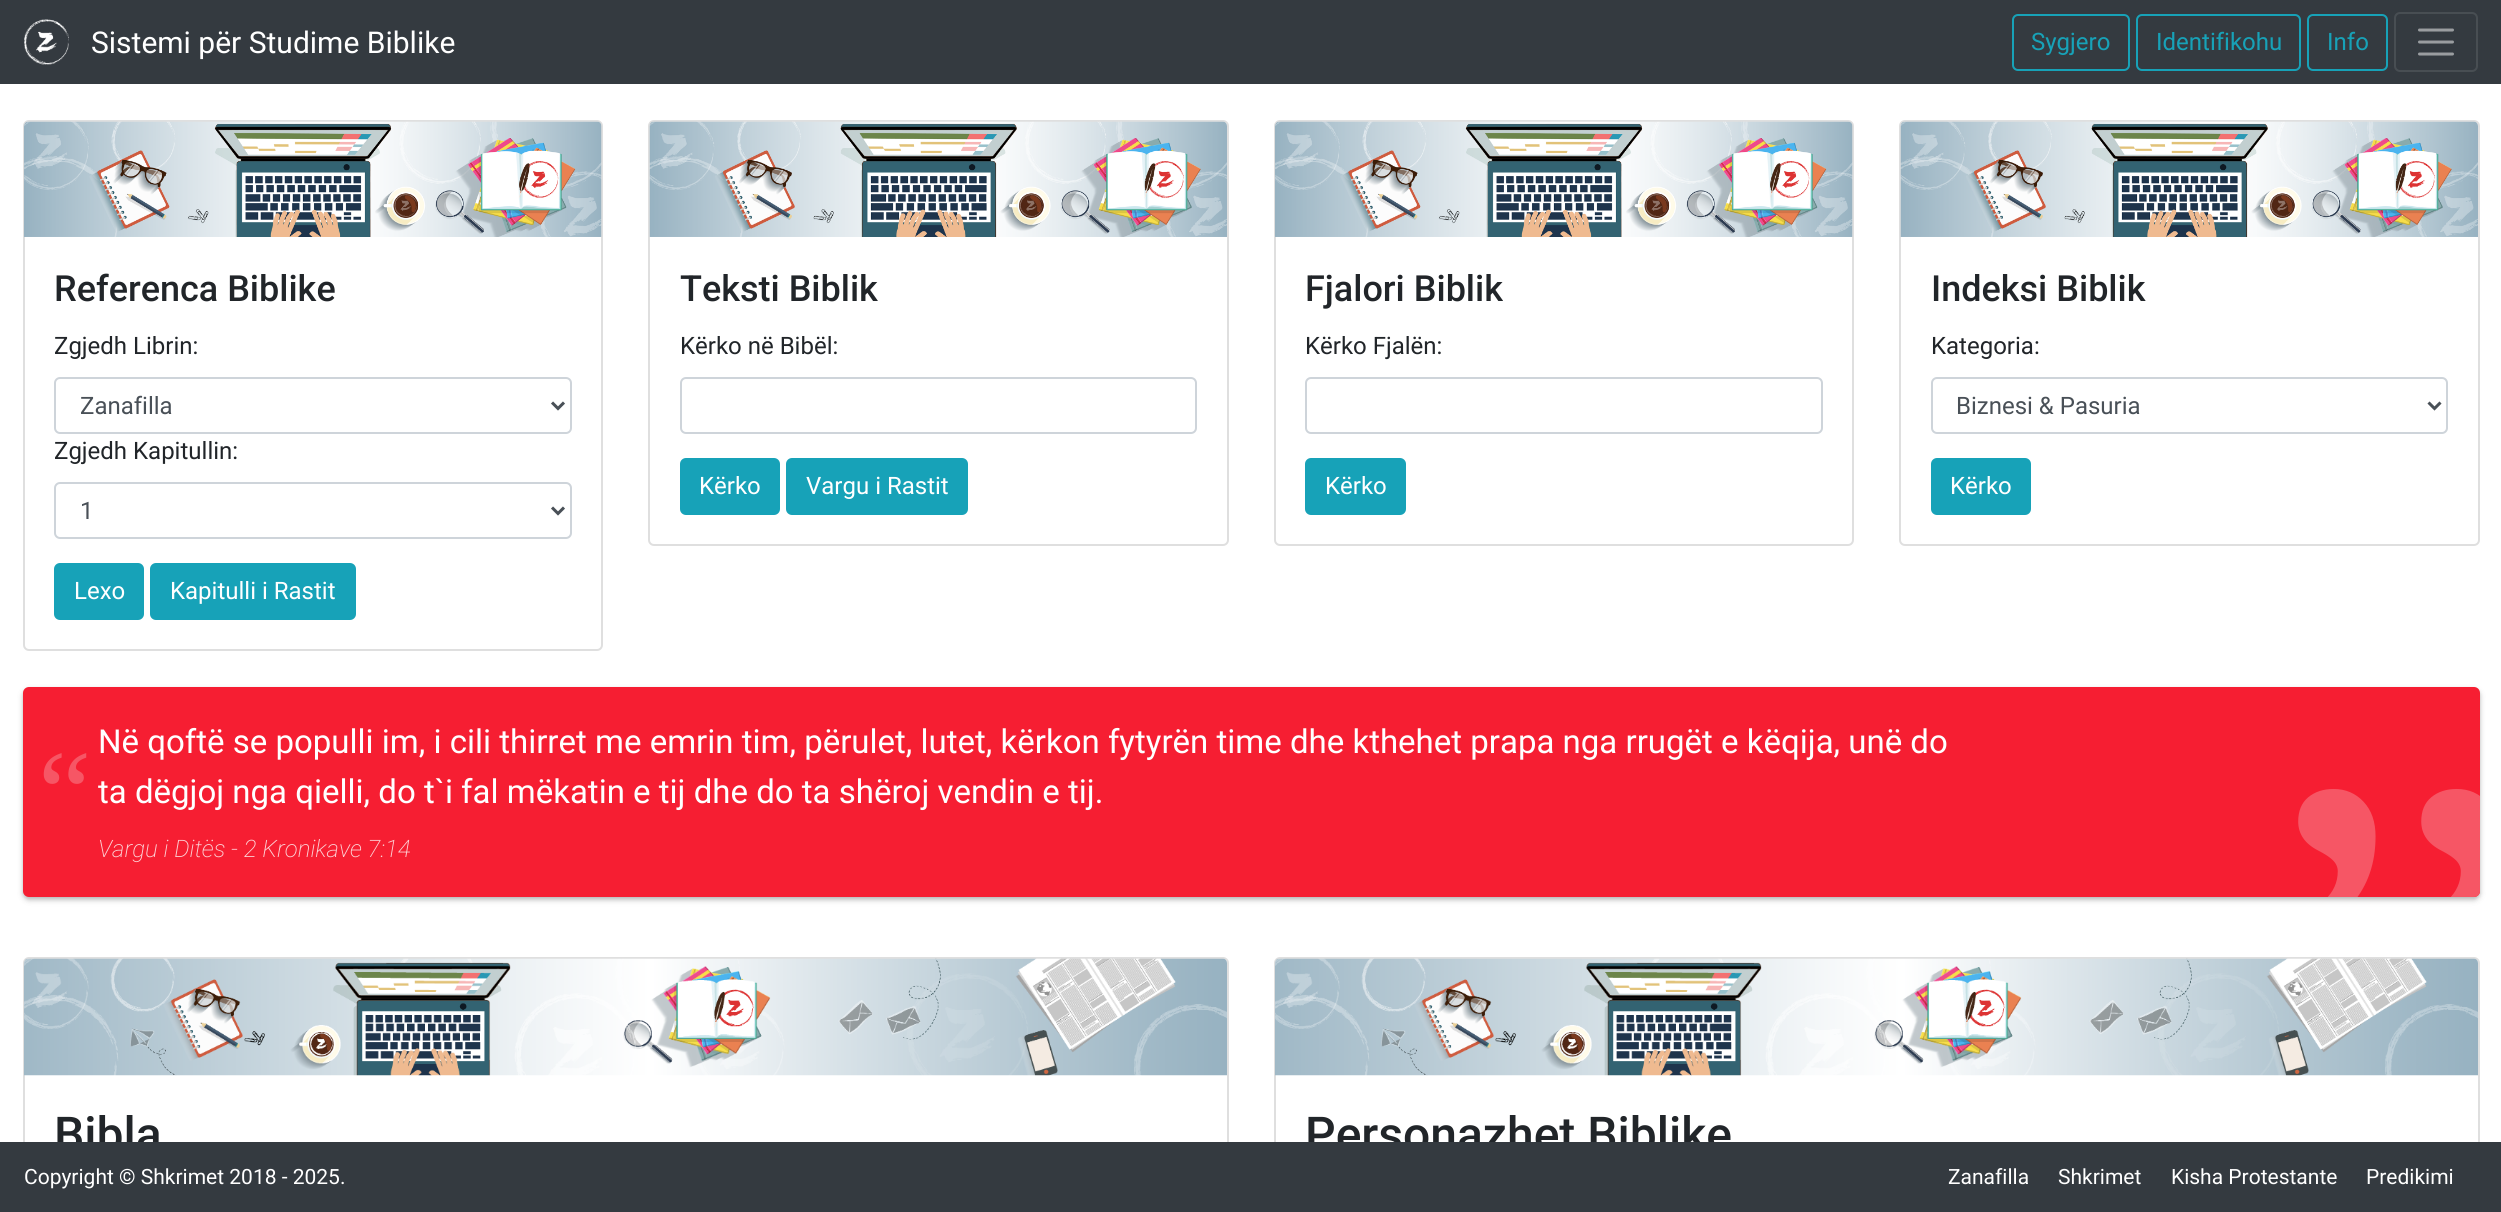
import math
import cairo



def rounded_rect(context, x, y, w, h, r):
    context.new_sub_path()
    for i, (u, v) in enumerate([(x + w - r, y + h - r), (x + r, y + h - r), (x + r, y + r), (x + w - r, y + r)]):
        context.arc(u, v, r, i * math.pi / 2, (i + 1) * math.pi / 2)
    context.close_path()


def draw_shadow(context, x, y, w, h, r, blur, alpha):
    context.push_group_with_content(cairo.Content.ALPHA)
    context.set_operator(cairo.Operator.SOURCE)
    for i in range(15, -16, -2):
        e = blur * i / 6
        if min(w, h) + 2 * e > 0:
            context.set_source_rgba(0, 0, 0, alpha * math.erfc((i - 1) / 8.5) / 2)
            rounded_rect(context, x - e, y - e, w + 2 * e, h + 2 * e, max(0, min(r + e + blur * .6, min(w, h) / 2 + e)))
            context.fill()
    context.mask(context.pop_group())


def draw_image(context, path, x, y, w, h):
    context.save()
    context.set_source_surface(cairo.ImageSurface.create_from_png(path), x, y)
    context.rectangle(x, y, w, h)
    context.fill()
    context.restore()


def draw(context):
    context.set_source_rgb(1, 1, 1)
    context.paint()
    context.set_source_rgb(52 / 255, 58 / 255, 64 / 255)
    context.rectangle(0, 0, 2501, 84)
    context.fill()
    draw_image(context, "images/1.png", 24, 19, 45, 46)
    rounded_rect(context, 2013, 15, 116, 55, 5)
    context.set_source_rgb(23 / 255, 162 / 255, 184 / 255)
    context.stroke()
    rounded_rect(context, 2137, 15, 163, 55, 5)
    context.stroke()
    rounded_rect(context, 2308, 15, 79, 55, 5)
    context.stroke()
    rounded_rect(context, 2395, 13, 82, 58, 5)
    context.set_source_rgb(72 / 255, 78 / 255, 83 / 255)
    context.stroke()
    context.new_path()
    context.move_to(2419.5, 30)
    context.line_to(2452.5, 30)
    context.move_to(2419.5, 42)
    context.line_to(2452.5, 42)
    context.move_to(2419.5, 54)
    context.line_to(2452.5, 54)
    context.set_source_rgb(154 / 255, 157 / 255, 160 / 255)
    context.set_line_width(3)
    context.set_line_cap(cairo.LineCap.ROUND)
    context.stroke()
    rounded_rect(context, 24, 121, 578, 529, 5)
    context.set_source_rgb(223 / 255, 223 / 255, 223 / 255)
    context.set_line_width(2)
    context.set_line_cap(cairo.LineCap.BUTT)
    context.stroke()
    draw_image(context, "images/2.png", 24, 121, 578, 116)
    rounded_rect(context, 55, 378, 516, 55, 5)
    context.set_source_rgb(206 / 255, 212 / 255, 218 / 255)
    context.stroke()
    context.new_path()
    context.move_to(552, 402.5)
    context.line_to(558, 408.5)
    context.line_to(564, 402.5)
    context.set_source_rgb(73 / 255, 80 / 255, 87 / 255)
    context.set_line_width(3)
    context.stroke()
    rounded_rect(context, 55, 483, 516, 55, 5)
    context.set_source_rgb(206 / 255, 212 / 255, 218 / 255)
    context.set_line_width(2)
    context.stroke()
    context.new_path()
    context.move_to(552, 507.5)
    context.line_to(558, 513.5)
    context.line_to(564, 507.5)
    context.set_source_rgb(73 / 255, 80 / 255, 87 / 255)
    context.set_line_width(3)
    context.stroke()
    context.set_source_rgb(23 / 255, 162 / 255, 184 / 255)
    rounded_rect(context, 55, 564, 88, 55, 5)
    context.fill_preserve()
    context.set_line_width(2)
    context.stroke()
    rounded_rect(context, 151, 564, 204, 55, 5)
    context.fill_preserve()
    context.stroke()
    rounded_rect(context, 649, 121, 579, 424, 5)
    context.set_source_rgb(223 / 255, 223 / 255, 223 / 255)
    context.stroke()
    draw_image(context, "images/3.png", 649, 121, 578, 116)
    rounded_rect(context, 681, 378, 515, 55, 5)
    context.set_source_rgb(206 / 255, 212 / 255, 218 / 255)
    context.stroke()
    context.set_source_rgb(23 / 255, 162 / 255, 184 / 255)
    rounded_rect(context, 681, 459, 98, 55, 5)
    context.fill_preserve()
    context.stroke()
    rounded_rect(context, 787, 459, 180, 55, 5)
    context.fill_preserve()
    context.stroke()
    rounded_rect(context, 1275, 121, 578, 424, 5)
    context.set_source_rgb(223 / 255, 223 / 255, 223 / 255)
    context.stroke()
    draw_image(context, "images/2.png", 1275, 121, 578, 116)
    rounded_rect(context, 1306, 378, 516, 55, 5)
    context.set_source_rgb(206 / 255, 212 / 255, 218 / 255)
    context.stroke()
    context.set_source_rgb(23 / 255, 162 / 255, 184 / 255)
    rounded_rect(context, 1306, 459, 99, 55, 5)
    context.fill_preserve()
    context.stroke()
    rounded_rect(context, 1900, 121, 579, 424, 5)
    context.set_source_rgb(223 / 255, 223 / 255, 223 / 255)
    context.stroke()
    draw_image(context, "images/3.png", 1900, 121, 578, 116)
    rounded_rect(context, 1932, 378, 515, 55, 5)
    context.set_source_rgb(206 / 255, 212 / 255, 218 / 255)
    context.stroke()
    context.new_path()
    context.move_to(2428.5, 402.5)
    context.line_to(2434.5, 408.5)
    context.line_to(2440.5, 402.5)
    context.set_source_rgb(73 / 255, 80 / 255, 87 / 255)
    context.set_line_width(3)
    context.stroke()
    context.set_source_rgb(23 / 255, 162 / 255, 184 / 255)
    rounded_rect(context, 1932, 459, 98, 55, 5)
    context.fill_preserve()
    context.set_line_width(2)
    context.stroke()
    context.set_source_rgb(34 / 255, 34 / 255, 34 / 255)
    draw_shadow(context, 23, 690, 2457, 210, 6, 3, 0.24)
    draw_shadow(context, 23, 689, 2457, 210, 6, 1.5, 0.12)
    context.set_source_rgb(246 / 255, 30 / 255, 50 / 255)
    rounded_rect(context, 23, 687, 2457, 210, 6)
    context.fill()
    rounded_rect(context, 24, 958, 1204, 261, 5)
    context.set_source_rgb(223 / 255, 223 / 255, 223 / 255)
    context.stroke()
    draw_image(context, "images/4.png", 24, 958, 1203, 118)
    rounded_rect(context, 1275, 958, 1204, 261, 5)
    context.stroke()
    draw_image(context, "images/4.png", 1275, 958, 1203, 118)
    context.select_font_face("Roboto")
    context.set_font_size(30)
    context.set_source_rgb(1, 1, 1)
    context.move_to(91, 53)
    context.show_text("Sistemi për Studime Biblike")
    context.set_font_size(24)
    context.set_source_rgb(23 / 255, 162 / 255, 184 / 255)
    context.move_to(2031, 50)
    context.show_text("Sygjero")
    context.move_to(2156, 50)
    context.show_text("Identifikohu")
    context.move_to(2327, 50)
    context.show_text("Info")
    context.select_font_face("Roboto Medium")
    context.set_font_size(36)
    context.set_source_rgb(33 / 255, 37 / 255, 41 / 255)
    context.move_to(54, 301)
    context.show_text("Referenca Biblike")
    context.select_font_face("Roboto")
    context.set_font_size(24)
    context.move_to(54, 354)
    context.show_text("Zgjedh Librin:")
    context.set_source_rgb(73 / 255, 80 / 255, 87 / 255)
    context.move_to(80, 414)
    context.show_text("Zanafilla")
    context.set_source_rgb(33 / 255, 37 / 255, 41 / 255)
    context.move_to(54, 459)
    context.show_text("Zgjedh Kapitullin:")
    context.set_source_rgb(73 / 255, 80 / 255, 87 / 255)
    context.move_to(80, 519)
    context.show_text("1")
    context.set_source_rgb(1, 1, 1)
    context.move_to(74, 599)
    context.show_text("Lexo")
    context.move_to(170, 599)
    context.show_text("Kapitulli i Rastit")
    context.select_font_face("Roboto Medium")
    context.set_font_size(36)
    context.set_source_rgb(33 / 255, 37 / 255, 41 / 255)
    context.move_to(680, 301)
    context.show_text("Teksti Biblik")
    context.select_font_face("Roboto")
    context.set_font_size(24)
    context.move_to(680, 354)
    context.show_text("Kërko në Bibël:")
    context.set_source_rgb(1, 1, 1)
    context.move_to(699, 494)
    context.show_text("Kërko")
    context.move_to(806, 494)
    context.show_text("Vargu i Rastit")
    context.select_font_face("Roboto Medium")
    context.set_font_size(36)
    context.set_source_rgb(33 / 255, 37 / 255, 41 / 255)
    context.move_to(1305, 301)
    context.show_text("Fjalori Biblik")
    context.select_font_face("Roboto")
    context.set_font_size(24)
    context.move_to(1305, 354)
    context.show_text("Kërko Fjalën:")
    context.set_source_rgb(1, 1, 1)
    context.move_to(1325, 494)
    context.show_text("Kërko")
    context.select_font_face("Roboto Medium")
    context.set_font_size(36)
    context.set_source_rgb(33 / 255, 37 / 255, 41 / 255)
    context.move_to(1931, 301)
    context.show_text("Indeksi Biblik")
    context.select_font_face("Roboto")
    context.set_font_size(24)
    context.move_to(1931, 354)
    context.show_text("Kategoria:")
    context.set_source_rgb(73 / 255, 80 / 255, 87 / 255)
    context.move_to(1956, 414)
    context.show_text("Biznesi & Pasuria")
    context.set_source_rgb(1, 1, 1)
    context.move_to(1950, 494)
    context.show_text("Kërko")
    context.select_font_face("Liberation Serif")
    context.set_font_size(120)
    context.set_source_rgb(246 / 255, 86 / 255, 101 / 255)
    context.move_to(38, 833)
    context.show_text("“")
    context.select_font_face("Roboto")
    context.set_font_size(33)
    context.set_source_rgb(1, 1, 1)
    context.move_to(98, 753)
    context.show_text("Në qoftë se populli im, i cili thirret me emrin tim, përulet, lutet, kërkon fytyrën time dhe kthehet prapa nga rrugët e këqija, unë do")
    context.move_to(98, 803)
    context.show_text("ta dëgjoj nga qielli, do t`i fal mëkatin e tij dhe do ta shëroj vendin e tij.")
    context.select_font_face("Roboto ExtraLight", cairo.FontSlant.ITALIC)
    context.set_font_size(24)
    context.set_source_rgb(253 / 255, 210 / 255, 214 / 255)
    context.move_to(98, 857)
    context.show_text("Vargu i Ditës - 2 Kronikave 7:14")
    context.save()
    rounded_rect(context, 23, 687, 2457, 210, 6)
    context.clip()
    context.select_font_face("Liberation Serif")
    context.set_font_size(600)
    context.set_source_rgb(246 / 255, 86 / 255, 101 / 255)
    context.move_to(2261, 1188)
    context.show_text("”")
    context.restore()
    context.select_font_face("Roboto Medium")
    context.set_font_size(48)
    context.set_source_rgb(33 / 255, 37 / 255, 41 / 255)
    context.move_to(54, 1151)
    context.show_text("Bibla")
    context.move_to(1305, 1151)
    context.show_text("Personazhet Biblike")
    context.set_source_rgb(52 / 255, 58 / 255, 64 / 255)
    context.rectangle(0, 1142, 2501, 70)
    context.fill()
    context.select_font_face("Roboto")
    context.set_font_size(21)
    context.set_source_rgb(1, 1, 1)
    context.move_to(24, 1184)
    context.show_text("Copyright © Shkrimet 2018 - 2025.")
    context.move_to(1948, 1184)
    context.show_text("Zanafilla")
    context.move_to(2058, 1184)
    context.show_text("Shkrimet")
    context.move_to(2171, 1184)
    context.show_text("Kisha Protestante")
    context.move_to(2366, 1184)
    context.show_text("Predikimi")


surface = cairo.ImageSurface(cairo.Format.RGB24, 2501, 1212)
context = cairo.Context(surface)
options = cairo.FontOptions()
options.set_hint_metrics(cairo.HintMetrics.OFF)
options.set_hint_style(cairo.HintStyle.NONE)
context.set_font_options(options)
context.set_miter_limit(4)
draw(context)
surface.write_to_png("out.png")
